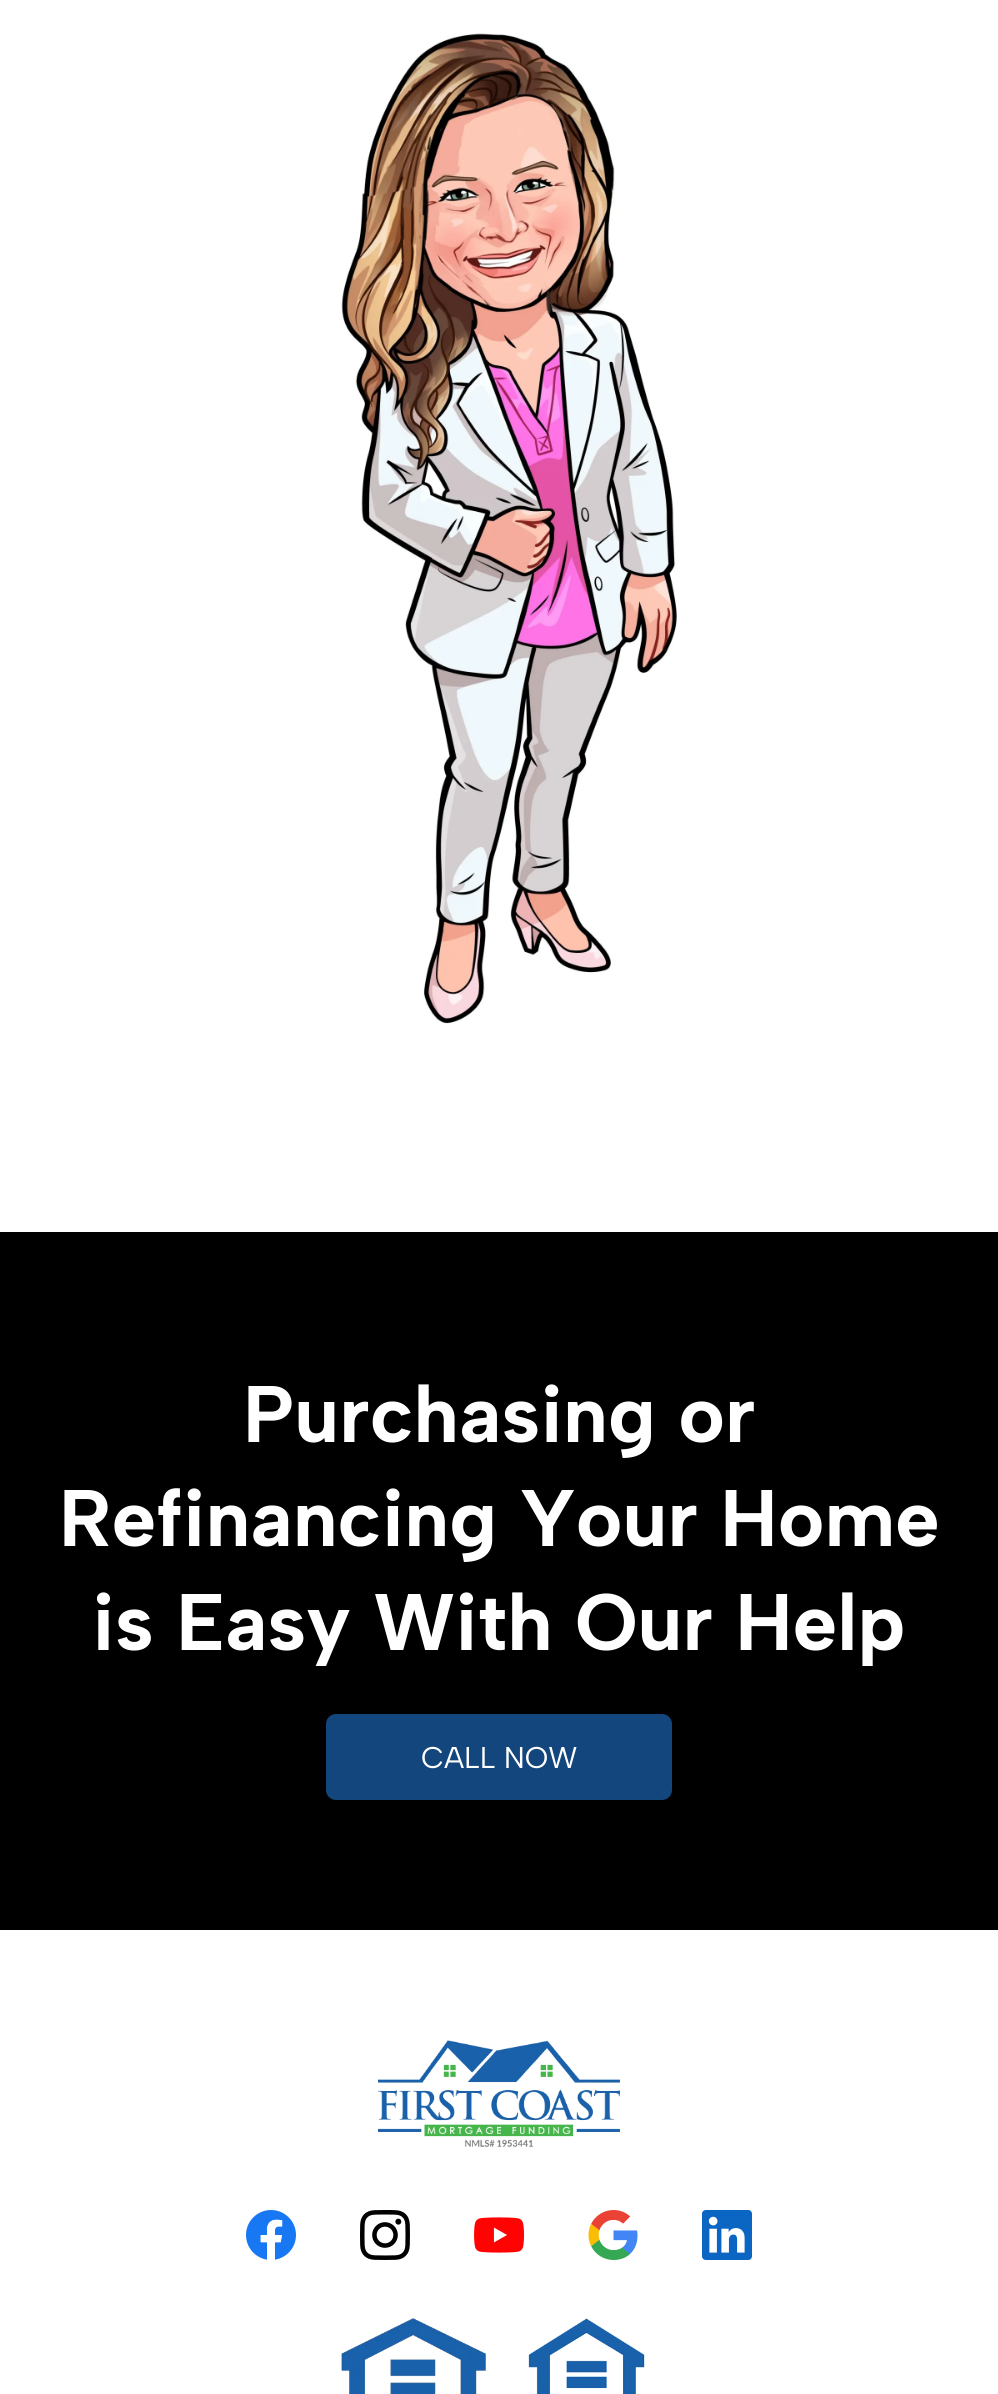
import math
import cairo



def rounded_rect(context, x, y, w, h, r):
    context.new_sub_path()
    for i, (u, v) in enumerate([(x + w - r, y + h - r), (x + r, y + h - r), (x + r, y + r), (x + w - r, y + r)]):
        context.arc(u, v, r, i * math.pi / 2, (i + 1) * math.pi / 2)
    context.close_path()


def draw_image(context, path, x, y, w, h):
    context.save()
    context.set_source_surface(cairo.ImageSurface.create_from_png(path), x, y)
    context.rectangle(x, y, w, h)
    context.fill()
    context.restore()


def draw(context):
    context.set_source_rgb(1, 1, 1)
    context.paint()
    draw_image(context, "images/1.png", 341, 33, 336, 991)
    context.set_source_rgb(0, 0, 0)
    context.rectangle(0, 1232, 998, 698)
    context.fill()
    context.set_source_rgb(19 / 255, 70 / 255, 124 / 255)
    rounded_rect(context, 326, 1714, 346, 86, 10)
    context.fill()
    draw_image(context, "images/2.png", 378, 2040, 242, 108)
    draw_image(context, "images/3.png", 246, 2210, 50, 50)
    draw_image(context, "images/4.png", 360, 2210, 50, 50)
    draw_image(context, "images/5.png", 474, 2217, 50, 36)
    draw_image(context, "images/6.png", 588, 2210, 50, 50)
    draw_image(context, "images/7.png", 702, 2210, 50, 50)
    draw_image(context, "images/8.png", 341, 2318, 304, 76)
    context.select_font_face("Albert Sans", cairo.FontSlant.NORMAL, cairo.FontWeight.BOLD)
    context.set_font_size(80)
    context.set_source_rgb(1, 1, 1)
    context.move_to(243, 1442)
    context.show_text("Purchasing or")
    context.move_to(59, 1546)
    context.show_text("Refinancing Your Home")
    context.move_to(92, 1650)
    context.show_text("is Easy With Our Help")
    context.select_font_face("Albert Sans")
    context.set_font_size(30)
    context.move_to(421, 1768)
    context.show_text("CALL NOW")


surface = cairo.ImageSurface(cairo.Format.RGB24, 998, 2394)
context = cairo.Context(surface)
options = cairo.FontOptions()
options.set_hint_metrics(cairo.HintMetrics.OFF)
options.set_hint_style(cairo.HintStyle.NONE)
context.set_font_options(options)
context.set_miter_limit(4)
draw(context)
surface.write_to_png("out.png")
